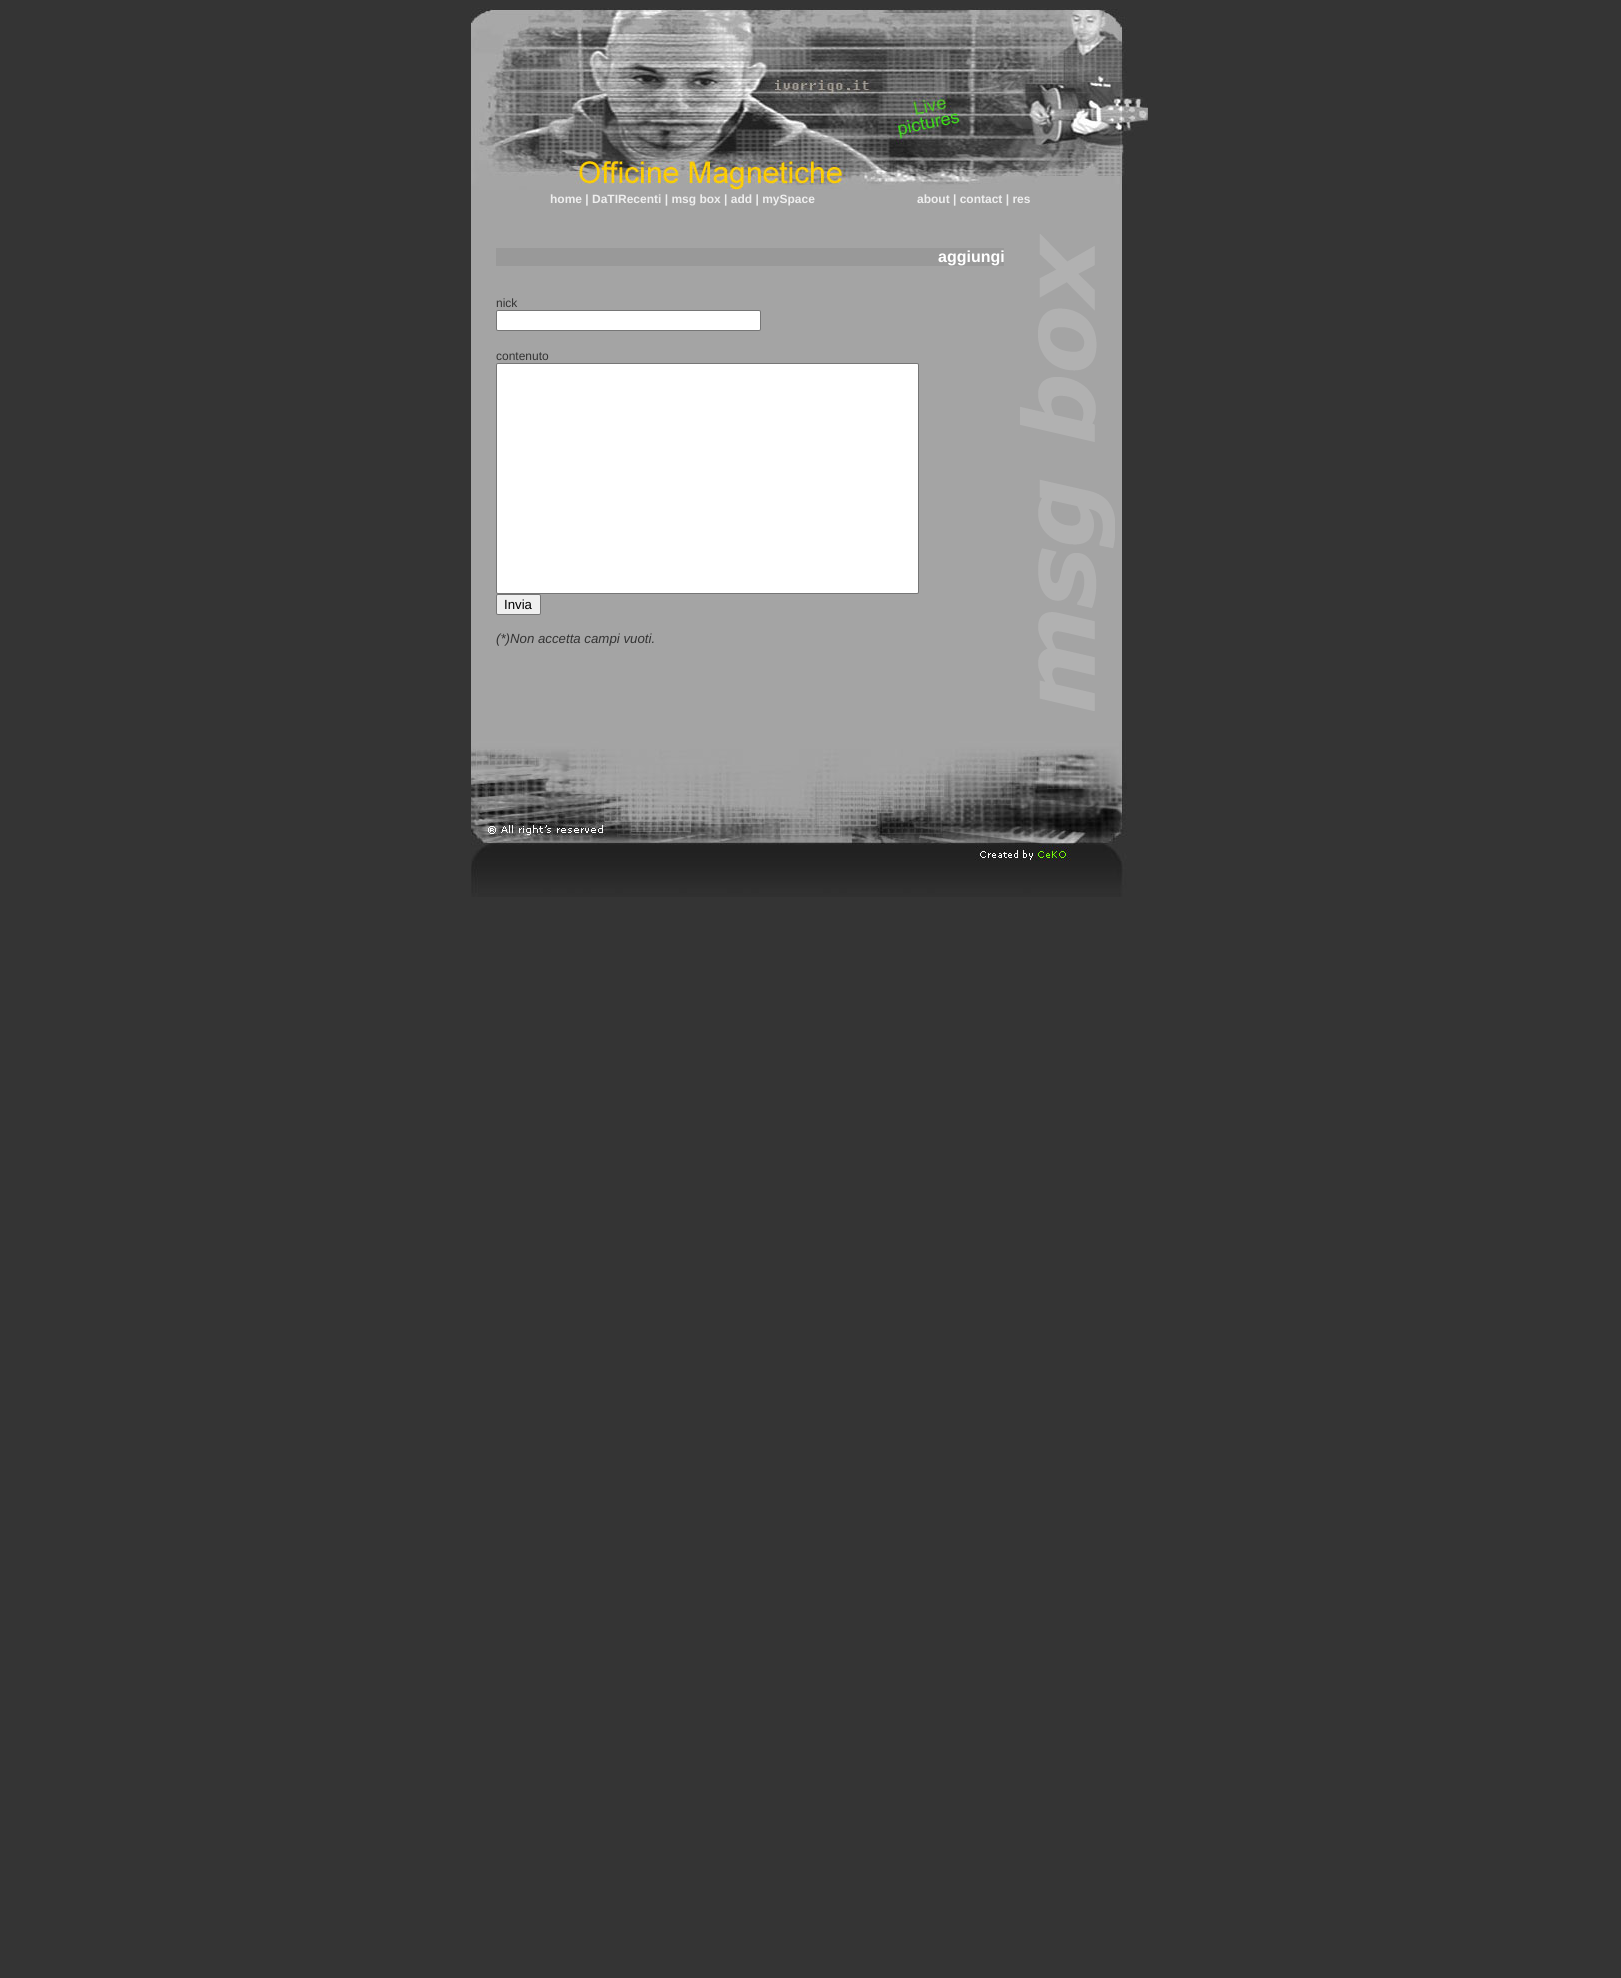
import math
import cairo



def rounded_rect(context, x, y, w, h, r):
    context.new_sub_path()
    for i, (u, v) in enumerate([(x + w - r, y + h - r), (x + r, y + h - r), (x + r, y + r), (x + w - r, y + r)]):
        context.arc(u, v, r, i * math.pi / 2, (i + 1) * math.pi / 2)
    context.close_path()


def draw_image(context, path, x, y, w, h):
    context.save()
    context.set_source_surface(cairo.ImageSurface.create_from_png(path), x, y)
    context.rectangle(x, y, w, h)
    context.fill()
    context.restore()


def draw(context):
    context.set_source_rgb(52 / 255, 52 / 255, 52 / 255)
    context.paint()
    draw_image(context, "images/1.png", 471, 8, 677, 182)
    context.set_source_rgb(164 / 255, 164 / 255, 164 / 255)
    context.rectangle(471, 190, 651, 551)
    context.fill()
    context.set_source_rgb(153 / 255, 153 / 255, 153 / 255)
    context.rectangle(496, 248, 508, 18)
    context.fill()
    draw_image(context, "images/2.png", 1020, 234, 95, 477)
    context.set_source_rgb(1, 1, 1)
    rounded_rect(context, 496.5, 310.5, 264, 20, 1.5)
    context.fill_preserve()
    context.set_source_rgb(118 / 255, 118 / 255, 118 / 255)
    context.set_line_width(1)
    context.stroke()
    context.set_source_rgb(1, 1, 1)
    rounded_rect(context, 496.5, 363.5, 422, 230, 1.5)
    context.fill_preserve()
    context.set_source_rgb(118 / 255, 118 / 255, 118 / 255)
    context.stroke()
    context.set_source_rgb(239 / 255, 239 / 255, 239 / 255)
    rounded_rect(context, 496.5, 594.5, 44, 20, 1.5)
    context.fill_preserve()
    context.set_source_rgb(118 / 255, 118 / 255, 118 / 255)
    context.stroke()
    draw_image(context, "images/3.png", 471, 741, 656, 156)
    context.select_font_face("Liberation Sans", cairo.FontSlant.NORMAL, cairo.FontWeight.BOLD)
    context.set_font_size(12)
    context.set_source_rgb(238 / 255, 238 / 255, 238 / 255)
    context.move_to(550, 203)
    context.show_text("home | DaTIRecenti | msg box | add | mySpace")
    context.move_to(917, 203)
    context.show_text("about | contact | res")
    context.set_font_size(16)
    context.set_source_rgb(1, 1, 1)
    context.move_to(938, 262)
    context.show_text("aggiungi")
    context.select_font_face("Liberation Sans")
    context.set_font_size(12)
    context.set_source_rgb(51 / 255, 51 / 255, 51 / 255)
    context.move_to(496, 307)
    context.show_text("nick")
    context.move_to(496, 360)
    context.show_text("contenuto")
    context.set_font_size(13.25)
    context.set_source_rgb(0, 0, 0)
    context.move_to(504, 609)
    context.show_text("Invia")
    context.select_font_face("Liberation Sans", cairo.FontSlant.ITALIC)
    context.set_source_rgb(51 / 255, 51 / 255, 51 / 255)
    context.move_to(496, 643)
    context.show_text("(*)Non accetta campi vuoti.")


surface = cairo.ImageSurface(cairo.Format.RGB24, 1621, 1978)
context = cairo.Context(surface)
options = cairo.FontOptions()
options.set_hint_metrics(cairo.HintMetrics.OFF)
options.set_hint_style(cairo.HintStyle.NONE)
context.set_font_options(options)
context.set_miter_limit(4)
draw(context)
surface.write_to_png("out.png")
